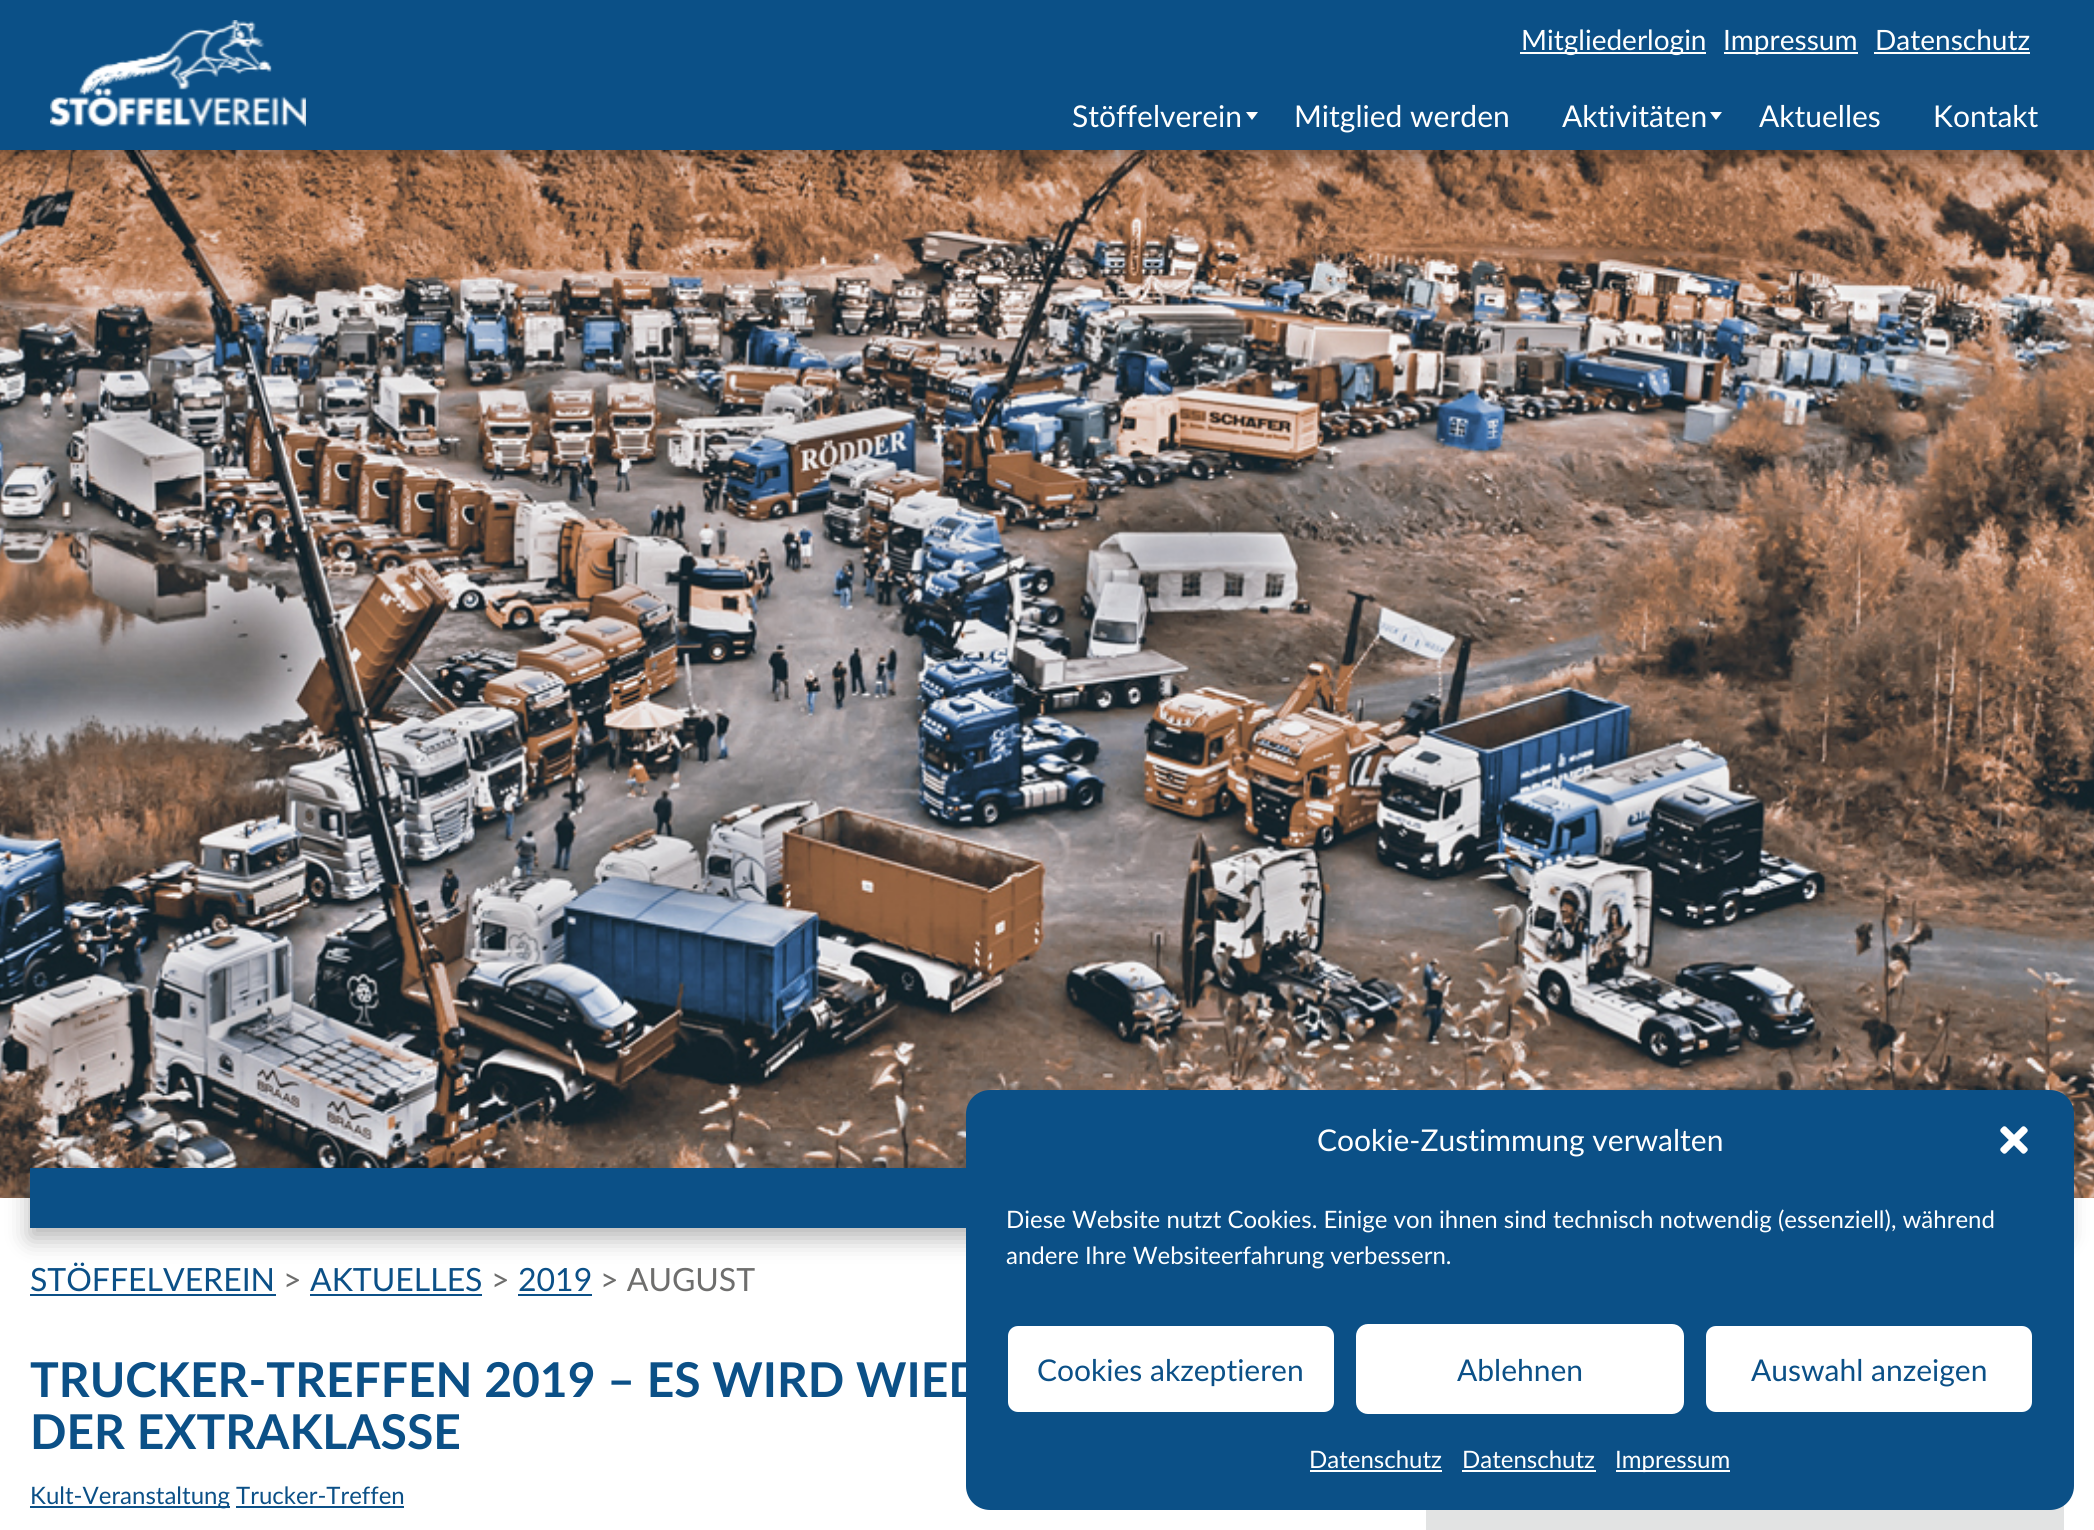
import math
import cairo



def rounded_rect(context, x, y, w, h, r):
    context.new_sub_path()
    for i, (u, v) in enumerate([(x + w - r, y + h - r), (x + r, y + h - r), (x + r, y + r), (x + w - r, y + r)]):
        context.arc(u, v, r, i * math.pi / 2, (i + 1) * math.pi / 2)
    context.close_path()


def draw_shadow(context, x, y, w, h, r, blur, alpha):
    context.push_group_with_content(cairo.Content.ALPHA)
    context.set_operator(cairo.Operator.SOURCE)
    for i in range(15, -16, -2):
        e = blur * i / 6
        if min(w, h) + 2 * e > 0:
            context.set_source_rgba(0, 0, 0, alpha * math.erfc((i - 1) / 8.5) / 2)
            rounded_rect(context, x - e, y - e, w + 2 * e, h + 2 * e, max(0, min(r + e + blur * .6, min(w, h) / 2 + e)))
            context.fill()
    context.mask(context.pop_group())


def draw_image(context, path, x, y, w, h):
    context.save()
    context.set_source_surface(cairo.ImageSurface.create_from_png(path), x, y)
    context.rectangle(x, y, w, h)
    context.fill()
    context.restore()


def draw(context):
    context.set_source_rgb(1, 1, 1)
    context.paint()
    draw_image(context, "images/2.png", 0, 150, 2094, 1048)
    context.set_source_rgb(0, 0, 0)
    draw_shadow(context, 0, 10, 2094, 150, 0, 8, 0.3)
    context.set_source_rgb(11 / 255, 80 / 255, 135 / 255)
    context.rectangle(0, 0, 2094, 150)
    context.fill()
    draw_image(context, "images/1.png", 50, 20, 256, 107)
    context.set_source_rgb(1, 1, 1)
    context.rectangle(1520, 52, 186, 2)
    context.fill()
    context.rectangle(1724, 52, 134, 2)
    context.fill()
    context.rectangle(1874, 52, 156, 2)
    context.fill()
    context.new_path()
    context.move_to(1246, 112)
    context.line_to(1258, 112)
    context.line_to(1252, 120)
    context.close_path()
    context.fill()
    context.new_path()
    context.move_to(1710, 112)
    context.line_to(1722, 112)
    context.line_to(1716, 120)
    context.close_path()
    context.fill()
    context.set_source_rgb(0, 0, 0)
    draw_shadow(context, 30, 1178, 2034, 60, 0, 12, 0.3)
    context.set_source_rgb(11 / 255, 80 / 255, 135 / 255)
    context.rectangle(30, 1168, 936, 60)
    context.fill()
    context.rectangle(30, 1294, 246, 2)
    context.fill()
    context.rectangle(310, 1294, 172, 2)
    context.fill()
    context.rectangle(518, 1294, 74, 2)
    context.fill()
    context.rectangle(30, 1506, 200, 2)
    context.fill()
    context.rectangle(236, 1506, 168, 2)
    context.fill()
    context.set_source_rgb(226 / 255, 227 / 255, 227 / 255)
    context.rectangle(1426, 1505, 638, 25)
    context.fill()
    context.set_source_rgb(11 / 255, 80 / 255, 135 / 255)
    rounded_rect(context, 966, 1090, 1108, 420, 24)
    context.fill()
    draw_image(context, "images/3.png", 2000, 1126, 28, 28)
    context.set_source_rgb(1, 1, 1)
    rounded_rect(context, 1007, 1325, 328, 88, 11)
    context.fill_preserve()
    context.set_source_rgb(11 / 255, 80 / 255, 135 / 255)
    context.stroke()
    context.set_source_rgb(1, 1, 1)
    rounded_rect(context, 1357, 1325, 326, 88, 11)
    context.fill_preserve()
    context.stroke()
    rounded_rect(context, 1705, 1325, 328, 88, 11)
    context.fill_preserve()
    context.set_source_rgb(11 / 255, 80 / 255, 135 / 255)
    context.stroke()
    context.set_source_rgb(1, 1, 1)
    context.rectangle(1310, 1470, 132, 2)
    context.fill()
    context.rectangle(1462, 1470, 134, 2)
    context.fill()
    context.rectangle(1616, 1470, 114, 2)
    context.fill()
    context.select_font_face("Lato")
    context.set_font_size(28)
    context.move_to(1521, 50)
    context.show_text("Mitgliederlogin")
    context.move_to(1723, 50)
    context.show_text("Impressum")
    context.move_to(1875, 50)
    context.show_text("Datenschutz")
    context.set_font_size(30)
    context.move_to(1072, 127)
    context.show_text("Stöffelverein")
    context.move_to(1294, 127)
    context.show_text("Mitglied werden")
    context.move_to(1562, 127)
    context.show_text("Aktivitäten")
    context.move_to(1759, 127)
    context.show_text("Aktuelles")
    context.move_to(1933, 127)
    context.show_text("Kontakt")
    context.set_font_size(32)
    context.set_source_rgb(11 / 255, 80 / 255, 135 / 255)
    context.move_to(30, 1291)
    context.show_text("STÖFFELVEREIN")
    context.set_source_rgb(110 / 255, 110 / 255, 109 / 255)
    context.move_to(283, 1291)
    context.show_text(">")
    context.set_source_rgb(11 / 255, 80 / 255, 135 / 255)
    context.move_to(310, 1291)
    context.show_text("AKTUELLES")
    context.set_source_rgb(110 / 255, 110 / 255, 109 / 255)
    context.move_to(491, 1291)
    context.show_text(">")
    context.set_source_rgb(11 / 255, 80 / 255, 135 / 255)
    context.move_to(518, 1291)
    context.show_text("2019")
    context.set_source_rgb(110 / 255, 110 / 255, 109 / 255)
    context.move_to(600, 1291)
    context.show_text("> AUGUST")
    context.select_font_face("Lato", cairo.FontSlant.NORMAL, cairo.FontWeight.BOLD)
    context.set_font_size(48)
    context.set_source_rgb(11 / 255, 80 / 255, 135 / 255)
    context.move_to(30, 1397)
    context.show_text("TRUCKER-TREFFEN 2019 – ES WIRD WIED")
    context.move_to(30, 1449)
    context.show_text("DER EXTRAKLASSE")
    context.select_font_face("Lato")
    context.set_font_size(24)
    context.move_to(30, 1504)
    context.show_text("Kult-Veranstaltung Trucker-Treffen")
    context.set_font_size(30)
    context.set_source_rgb(1, 1, 1)
    context.move_to(1317, 1151)
    context.show_text("Cookie-Zustimmung verwalten")
    context.set_font_size(24)
    context.move_to(1006, 1228)
    context.show_text("Diese Website nutzt Cookies. Einige von ihnen sind technisch notwendig (essenziell), während")
    context.move_to(1006, 1264)
    context.show_text("andere Ihre Websiteerfahrung verbessern.")
    context.set_font_size(30)
    context.set_source_rgb(11 / 255, 80 / 255, 135 / 255)
    context.move_to(1037, 1381)
    context.show_text("Cookies akzeptieren")
    context.move_to(1457, 1381)
    context.show_text("Ablehnen")
    context.move_to(1751, 1381)
    context.show_text("Auswahl anzeigen")
    context.set_font_size(24)
    context.set_source_rgb(1, 1, 1)
    context.move_to(1309, 1468)
    context.show_text("Datenschutz")
    context.move_to(1462, 1468)
    context.show_text("Datenschutz")
    context.move_to(1615, 1468)
    context.show_text("Impressum")


surface = cairo.ImageSurface(cairo.Format.RGB24, 2094, 1530)
context = cairo.Context(surface)
options = cairo.FontOptions()
options.set_hint_metrics(cairo.HintMetrics.OFF)
options.set_hint_style(cairo.HintStyle.NONE)
context.set_font_options(options)
context.set_miter_limit(4)
draw(context)
surface.write_to_png("out.png")
